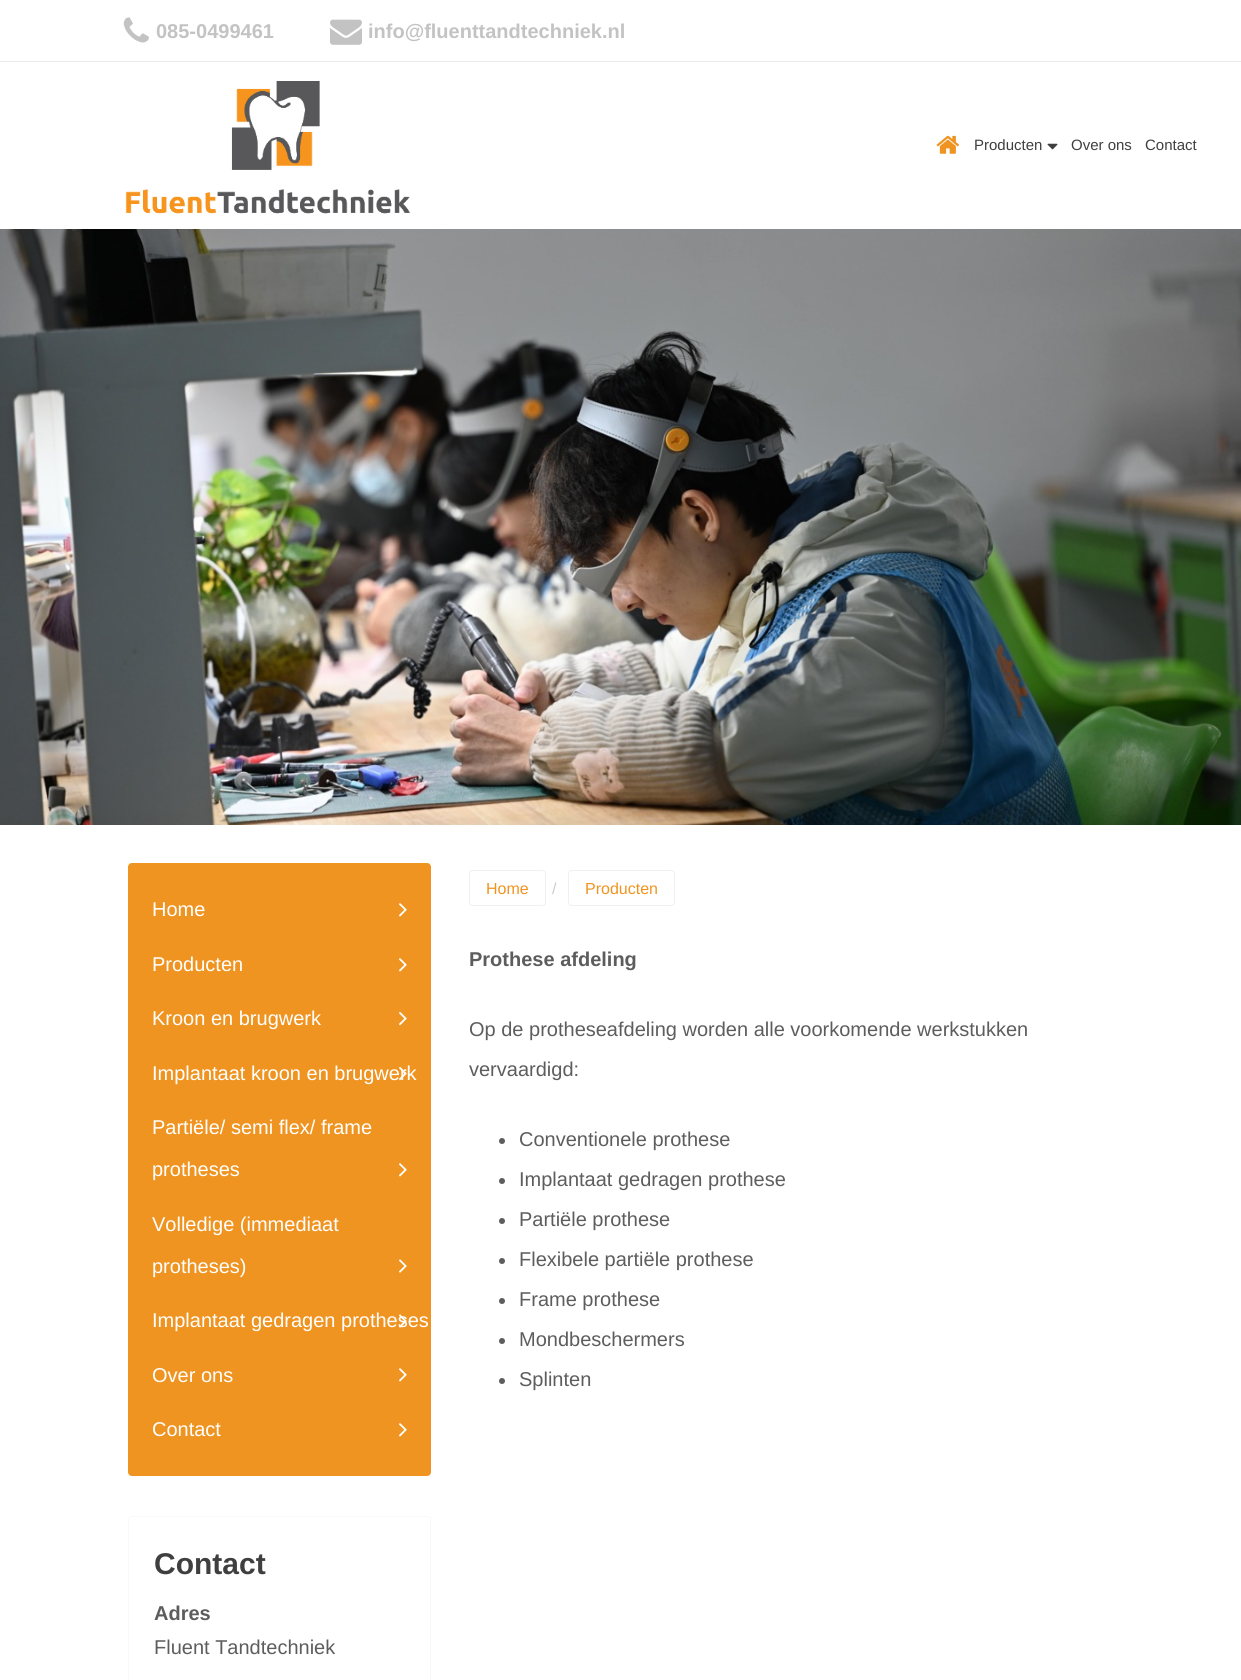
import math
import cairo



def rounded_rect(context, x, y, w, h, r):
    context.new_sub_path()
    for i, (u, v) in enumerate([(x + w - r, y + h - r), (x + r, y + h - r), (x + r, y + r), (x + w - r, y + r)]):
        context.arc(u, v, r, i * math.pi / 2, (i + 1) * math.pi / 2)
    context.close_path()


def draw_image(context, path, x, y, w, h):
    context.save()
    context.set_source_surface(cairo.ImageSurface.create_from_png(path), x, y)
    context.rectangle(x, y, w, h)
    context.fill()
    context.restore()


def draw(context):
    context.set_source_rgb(1, 1, 1)
    context.paint()
    context.set_source_rgb(236 / 255, 236 / 255, 236 / 255)
    context.rectangle(0, 61, 1241, 1)
    context.fill()
    draw_image(context, "images/1.png", 123, 17, 26, 26)
    draw_image(context, "images/2.png", 330, 19, 32, 26)
    draw_image(context, "images/3.png", 125, 81, 285, 133)
    draw_image(context, "images/4.png", 936, 135, 23, 19)
    draw_image(context, "images/5.png", 1047, 143, 11, 7)
    draw_image(context, "images/6.png", 0, 229, 1241, 596)
    context.set_source_rgb(239 / 255, 148 / 255, 33 / 255)
    rounded_rect(context, 128, 863, 303, 613, 4)
    context.fill()
    draw_image(context, "images/7.png", 399, 903, 8, 14)
    draw_image(context, "images/7.png", 399, 958, 8, 14)
    draw_image(context, "images/8.png", 399, 1011, 8, 15)
    draw_image(context, "images/7.png", 399, 1163, 8, 14)
    draw_image(context, "images/10.png", 399, 1259, 8, 14)
    draw_image(context, "images/7.png", 399, 1368, 8, 14)
    draw_image(context, "images/7.png", 399, 1423, 8, 14)
    rounded_rect(context, 128.5, 1516.5, 302, 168, 3.5)
    context.set_source_rgb(248 / 255, 248 / 255, 248 / 255)
    context.set_line_width(1)
    context.stroke()
    context.set_source_rgb(240 / 255, 240 / 255, 240 / 255)
    context.set_fill_rule(cairo.FillRule.EVEN_ODD)
    context.new_path()
    context.move_to(472.5, 870)
    context.line_to(486, 870)
    context.line_to(486, 906)
    context.line_to(472.5, 906)
    context.curve_to(470.5, 906, 469, 904.5, 469, 902.5)
    context.line_to(469, 874)
    context.curve_to(469, 871.5, 470.5, 870, 472.5, 870)
    context.close_path()
    context.move_to(472.5, 871)
    context.line_to(486, 871)
    context.line_to(486, 905)
    context.line_to(472.5, 905)
    context.curve_to(471, 905, 470, 904, 470, 902.5)
    context.line_to(470, 874)
    context.curve_to(470, 872.5, 471, 871, 472.5, 871)
    context.close_path()
    context.fill()
    context.new_path()
    context.move_to(486, 870)
    context.line_to(542, 870)
    context.curve_to(545, 870, 546, 872, 546, 874)
    context.line_to(546, 902)
    context.curve_to(546, 905, 545, 906, 542, 906)
    context.line_to(486, 906)
    context.close_path()
    context.move_to(486, 871)
    context.line_to(542, 871)
    context.curve_to(544, 871, 545, 872, 545, 874)
    context.line_to(545, 902)
    context.curve_to(545, 904, 544, 905, 542, 905)
    context.line_to(486, 905)
    context.close_path()
    context.fill()
    rounded_rect(context, 568.5, 870.5, 106, 35, 3.5)
    context.stroke()
    context.set_source_rgb(93 / 255, 93 / 255, 93 / 255)
    context.arc(502, 1141, 3, 0, 2 * math.pi)
    context.fill()
    context.arc(502, 1181, 3, 0, 2 * math.pi)
    context.fill()
    context.arc(502, 1221, 3, 0, 2 * math.pi)
    context.fill()
    context.arc(502, 1261, 3, 0, 2 * math.pi)
    context.fill()
    context.arc(502, 1301, 3, 0, 2 * math.pi)
    context.fill()
    context.arc(502, 1341, 3, 0, 2 * math.pi)
    context.fill()
    context.arc(502, 1381, 3, 0, 2 * math.pi)
    context.fill()
    context.select_font_face("Liberation Sans", cairo.FontSlant.NORMAL, cairo.FontWeight.BOLD)
    context.set_font_size(20)
    context.set_source_rgb(195 / 255, 195 / 255, 195 / 255)
    context.move_to(156, 38)
    context.show_text("085-0499461")
    context.move_to(368, 38)
    context.show_text("info@fluenttandtechniek.nl")
    context.select_font_face("Liberation Sans")
    context.set_font_size(15)
    context.set_source_rgb(63 / 255, 63 / 255, 63 / 255)
    context.move_to(974, 150)
    context.show_text("Producten")
    context.move_to(1071, 150)
    context.show_text("Over ons")
    context.move_to(1145, 150)
    context.show_text("Contact")
    context.set_font_size(20)
    context.set_source_rgb(1, 1, 1)
    context.move_to(152, 916)
    context.show_text("Home")
    context.move_to(152, 971)
    context.show_text("Producten")
    context.move_to(152, 1025)
    context.show_text("Kroon en brugwerk")
    context.move_to(152, 1080)
    context.show_text("Implantaat kroon en brugwerk")
    draw_image(context, "images/9.png", 399, 1066, 8, 15)
    context.move_to(152, 1134)
    context.show_text("Partiële/ semi flex/ frame")
    context.move_to(152, 1176)
    context.show_text("protheses")
    context.move_to(152, 1231)
    context.show_text("Volledige (immediaat")
    context.move_to(152, 1273)
    context.show_text("protheses)")
    context.move_to(152, 1327)
    context.show_text("Implantaat gedragen protheses")
    draw_image(context, "images/11.png", 399, 1314, 8, 14)
    context.move_to(152, 1382)
    context.show_text("Over ons")
    context.move_to(152, 1436)
    context.show_text("Contact")
    context.select_font_face("Liberation Sans", cairo.FontSlant.NORMAL, cairo.FontWeight.BOLD)
    context.set_font_size(30)
    context.set_source_rgb(63 / 255, 63 / 255, 63 / 255)
    context.move_to(154, 1574)
    context.show_text("Contact")
    context.set_font_size(20)
    context.set_source_rgb(93 / 255, 93 / 255, 93 / 255)
    context.move_to(154, 1620)
    context.show_text("Adres")
    context.select_font_face("Liberation Sans")
    context.move_to(154, 1654)
    context.show_text("Fluent Tandtechniek")
    context.set_font_size(16)
    context.set_source_rgb(239 / 255, 148 / 255, 33 / 255)
    context.move_to(486, 894)
    context.show_text("Home")
    context.set_source_rgb(204 / 255, 204 / 255, 204 / 255)
    context.move_to(552, 894)
    context.show_text("/")
    context.set_source_rgb(239 / 255, 148 / 255, 33 / 255)
    context.move_to(585, 894)
    context.show_text("Producten")
    context.select_font_face("Liberation Sans", cairo.FontSlant.NORMAL, cairo.FontWeight.BOLD)
    context.set_font_size(20)
    context.set_source_rgb(93 / 255, 93 / 255, 93 / 255)
    context.move_to(469, 966)
    context.show_text("Prothese afdeling")
    context.select_font_face("Liberation Sans")
    context.move_to(469, 1036)
    context.show_text("Op de protheseafdeling worden alle voorkomende werkstukken")
    context.move_to(469, 1076)
    context.show_text("vervaardigd:")
    context.move_to(519, 1146)
    context.show_text("Conventionele prothese")
    context.move_to(519, 1186)
    context.show_text("Implantaat gedragen prothese")
    context.move_to(519, 1226)
    context.show_text("Partiële prothese")
    context.move_to(519, 1266)
    context.show_text("Flexibele partiële prothese")
    context.move_to(519, 1306)
    context.show_text("Frame prothese")
    context.move_to(519, 1346)
    context.show_text("Mondbeschermers")
    context.move_to(519, 1386)
    context.show_text("Splinten")


surface = cairo.ImageSurface(cairo.Format.RGB24, 1241, 1680)
context = cairo.Context(surface)
options = cairo.FontOptions()
options.set_hint_metrics(cairo.HintMetrics.OFF)
options.set_hint_style(cairo.HintStyle.NONE)
context.set_font_options(options)
context.set_miter_limit(4)
draw(context)
surface.write_to_png("out.png")
